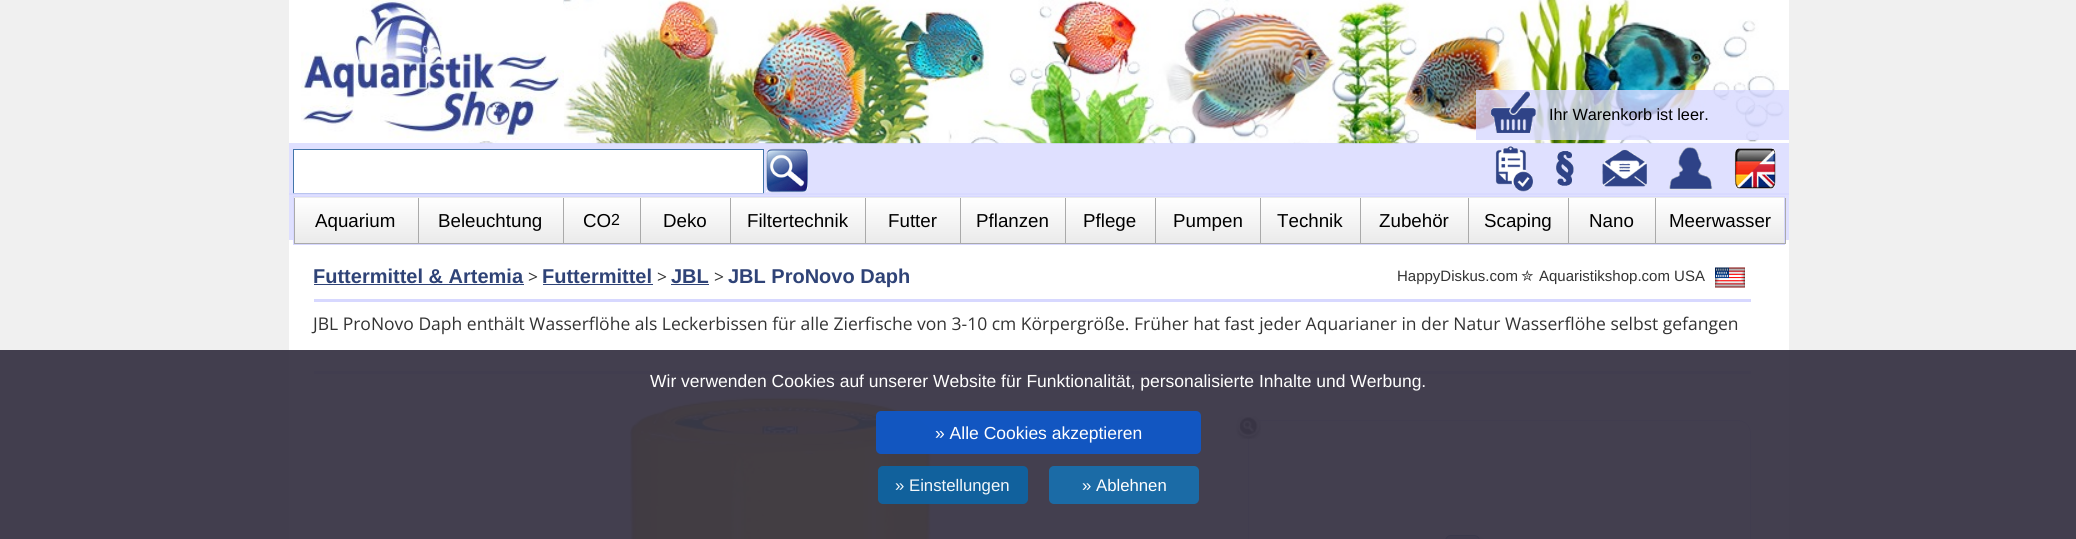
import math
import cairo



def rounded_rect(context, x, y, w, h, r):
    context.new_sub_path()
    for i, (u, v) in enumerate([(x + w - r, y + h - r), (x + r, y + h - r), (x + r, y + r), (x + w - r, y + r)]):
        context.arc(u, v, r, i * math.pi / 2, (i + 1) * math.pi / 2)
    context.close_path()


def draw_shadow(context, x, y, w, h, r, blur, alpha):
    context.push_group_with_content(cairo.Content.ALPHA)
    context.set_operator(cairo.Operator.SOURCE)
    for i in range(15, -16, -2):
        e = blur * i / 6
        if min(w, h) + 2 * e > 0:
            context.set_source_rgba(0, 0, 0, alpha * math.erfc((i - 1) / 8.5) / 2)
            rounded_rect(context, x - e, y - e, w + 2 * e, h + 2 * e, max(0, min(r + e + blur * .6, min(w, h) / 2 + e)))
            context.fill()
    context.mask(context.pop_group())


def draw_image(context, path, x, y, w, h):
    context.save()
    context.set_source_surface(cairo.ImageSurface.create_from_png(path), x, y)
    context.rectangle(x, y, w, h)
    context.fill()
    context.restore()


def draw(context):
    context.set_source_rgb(240 / 255, 240 / 255, 240 / 255)
    context.paint()
    context.set_source_rgb(1, 1, 1)
    context.rectangle(289, 0, 1500, 539)
    context.fill()
    draw_image(context, "images/1.png", 461, 0, 1328, 144)
    draw_image(context, "images/2.png", 301, 0, 263, 140)
    context.set_source_rgba(215 / 255, 216 / 255, 1, 0.8)
    context.rectangle(1476, 90, 313, 50)
    context.fill()
    draw_image(context, "images/3.png", 1491, 91, 45, 42)
    context.rectangle(289, 143, 1500, 52)
    context.fill()
    context.set_source_rgb(1, 1, 1)
    context.rectangle(293.5, 149.5, 470, 44)
    context.fill_preserve()
    context.set_source_rgb(66 / 255, 117 / 255, 170 / 255)
    context.set_line_width(1)
    context.stroke()
    draw_image(context, "images/4.png", 766, 148, 42, 45)
    draw_image(context, "images/5.png", 1495, 146, 38, 46)
    draw_image(context, "images/6.png", 1556, 151, 18, 35)
    draw_image(context, "images/7.png", 1602, 149, 45, 38)
    draw_image(context, "images/8.png", 1669, 147, 44, 43)
    draw_image(context, "images/9.png", 1734, 148, 42, 41)
    context.set_source_rgba(215 / 255, 216 / 255, 1, 0.8)
    context.rectangle(289, 193, 1500, 47)
    context.fill()
    gradient = cairo.LinearGradient(1039, 151, 1039, 198)
    gradient.add_color_stop_rgba(0, 1, 1, 1, 1)
    gradient.add_color_stop_rgba(1, 234 / 255, 234 / 255, 234 / 255, 1)
    context.set_source(gradient)
    context.rectangle(293, 197, 1492, 1)
    context.fill()
    gradient = cairo.LinearGradient(1039, 197, 1039, 244)
    gradient.add_color_stop_rgba(0, 1, 1, 1, 1)
    gradient.add_color_stop_rgba(1, 234 / 255, 234 / 255, 234 / 255, 1)
    context.set_source(gradient)
    context.rectangle(295, 198, 1489, 45)
    context.fill()
    context.rectangle(293.5, 196.5, 1491, 48)
    context.set_source_rgb(215 / 255, 216 / 255, 1)
    context.stroke()
    context.set_source_rgb(170 / 255, 170 / 255, 170 / 255)
    context.rectangle(418, 198, 1, 46)
    context.fill()
    context.rectangle(294, 243, 125, 1)
    context.fill()
    context.rectangle(294, 198, 1, 46)
    context.fill()
    context.rectangle(563, 198, 1, 46)
    context.fill()
    context.rectangle(419, 243, 145, 1)
    context.fill()
    context.rectangle(640, 198, 1, 46)
    context.fill()
    context.rectangle(564, 243, 77, 1)
    context.fill()
    context.rectangle(730, 198, 1, 46)
    context.fill()
    context.rectangle(641, 243, 90, 1)
    context.fill()
    context.rectangle(865, 198, 1, 46)
    context.fill()
    context.rectangle(731, 243, 135, 1)
    context.fill()
    context.rectangle(960, 198, 1, 46)
    context.fill()
    context.rectangle(866, 243, 95, 1)
    context.fill()
    context.rectangle(1065, 198, 1, 46)
    context.fill()
    context.rectangle(961, 243, 105, 1)
    context.fill()
    context.rectangle(1155, 198, 1, 46)
    context.fill()
    context.rectangle(1066, 243, 90, 1)
    context.fill()
    context.rectangle(1260, 198, 1, 46)
    context.fill()
    context.rectangle(1156, 243, 105, 1)
    context.fill()
    context.rectangle(1360, 198, 1, 46)
    context.fill()
    context.rectangle(1261, 243, 100, 1)
    context.fill()
    context.rectangle(1468, 198, 1, 46)
    context.fill()
    context.rectangle(1361, 243, 108, 1)
    context.fill()
    context.rectangle(1568, 198, 1, 46)
    context.fill()
    context.rectangle(1469, 243, 100, 1)
    context.fill()
    context.rectangle(1655, 198, 1, 46)
    context.fill()
    context.rectangle(1569, 243, 87, 1)
    context.fill()
    context.rectangle(1785, 198, 1, 46)
    context.fill()
    context.rectangle(1656, 243, 130, 1)
    context.fill()
    context.set_source_rgb(47 / 255, 67 / 255, 119 / 255)
    context.rectangle(314, 284, 210, 1)
    context.fill()
    context.rectangle(543, 284, 110, 1)
    context.fill()
    context.rectangle(671, 284, 38, 1)
    context.fill()
    draw_image(context, "images/10.png", 1715, 267, 30, 21)
    context.set_source_rgb(215 / 255, 216 / 255, 1)
    context.rectangle(314, 299, 1437, 3)
    context.fill()
    context.rectangle(314, 371, 1437, 3)
    context.fill()
    draw_image(context, "images/11.png", 629, 397, 304, 142)
    rounded_rect(context, 1248.5, 420.5, 502, 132, 12.5)
    context.stroke()
    draw_image(context, "images/12.png", 1236, 415, 26, 24)
    context.set_source_rgb(140 / 255, 160 / 255, 178 / 255)
    draw_shadow(context, 1449, 539, 35, 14, 6, 2.5, 1)
    context.set_source_rgb(168 / 255, 188 / 255, 208 / 255)
    rounded_rect(context, 1445.5, 535.5, 34, 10, 5.5)
    context.fill_preserve()
    context.set_source_rgb(66 / 255, 117 / 255, 170 / 255)
    context.stroke()
    context.set_source_rgba(58 / 255, 54 / 255, 71 / 255, 0.95)
    context.rectangle(0, 350, 2076, 189)
    context.fill()
    context.set_source_rgba(16 / 255, 88 / 255, 199 / 255, 0.95)
    rounded_rect(context, 876, 411, 325, 43, 5)
    context.fill()
    context.set_source_rgba(15 / 255, 99 / 255, 161 / 255, 0.95)
    rounded_rect(context, 878, 466, 150, 38, 5)
    context.fill()
    context.set_source_rgb(27 / 255, 107 / 255, 166 / 255)
    rounded_rect(context, 1049, 466, 150, 38, 5)
    context.fill()
    context.select_font_face("Liberation Sans")
    context.set_font_size(16.25)
    context.set_source_rgb(0, 0, 0)
    context.move_to(1549, 120)
    context.show_text("Ihr Warenkorb ist leer.")
    context.set_font_size(18.75)
    context.move_to(315, 227)
    context.show_text("Aquarium")
    context.move_to(438, 227)
    context.show_text("Beleuchtung")
    context.move_to(583, 227)
    context.show_text("CO")
    context.set_font_size(16)
    context.move_to(611, 225)
    context.show_text("2")
    context.set_font_size(18.75)
    context.move_to(663, 227)
    context.show_text("Deko")
    context.move_to(747, 227)
    context.show_text("Filtertechnik")
    context.move_to(888, 227)
    context.show_text("Futter")
    context.move_to(976, 227)
    context.show_text("Pflanzen")
    context.move_to(1083, 227)
    context.show_text("Pflege")
    context.move_to(1173, 227)
    context.show_text("Pumpen")
    context.move_to(1277, 227)
    context.show_text("Technik")
    context.move_to(1379, 227)
    context.show_text("Zubehör")
    context.move_to(1484, 227)
    context.show_text("Scaping")
    context.move_to(1589, 227)
    context.show_text("Nano")
    context.move_to(1669, 227)
    context.show_text("Meerwasser")
    context.select_font_face("Liberation Sans", cairo.FontSlant.NORMAL, cairo.FontWeight.BOLD)
    context.set_font_size(20)
    context.set_source_rgb(47 / 255, 67 / 255, 119 / 255)
    context.move_to(313, 283)
    context.show_text("Futtermittel & Artemia")
    context.select_font_face("Open Sans")
    context.set_font_size(17.5)
    context.set_source_rgb(51 / 255, 51 / 255, 51 / 255)
    context.move_to(528, 283)
    context.show_text(">")
    context.select_font_face("Liberation Sans", cairo.FontSlant.NORMAL, cairo.FontWeight.BOLD)
    context.set_font_size(20)
    context.set_source_rgb(47 / 255, 67 / 255, 119 / 255)
    context.move_to(542, 283)
    context.show_text("Futtermittel")
    context.select_font_face("Open Sans")
    context.set_font_size(17.5)
    context.set_source_rgb(51 / 255, 51 / 255, 51 / 255)
    context.move_to(657, 283)
    context.show_text(">")
    context.select_font_face("Liberation Sans", cairo.FontSlant.NORMAL, cairo.FontWeight.BOLD)
    context.set_font_size(20)
    context.set_source_rgb(47 / 255, 67 / 255, 119 / 255)
    context.move_to(671, 283)
    context.show_text("JBL")
    context.select_font_face("Open Sans")
    context.set_font_size(17.5)
    context.set_source_rgb(51 / 255, 51 / 255, 51 / 255)
    context.move_to(714, 283)
    context.show_text(">")
    context.select_font_face("Liberation Sans", cairo.FontSlant.NORMAL, cairo.FontWeight.BOLD)
    context.set_font_size(20)
    context.set_source_rgb(47 / 255, 67 / 255, 119 / 255)
    context.move_to(728, 283)
    context.show_text("JBL ProNovo Daph")
    context.select_font_face("Liberation Sans")
    context.set_font_size(15)
    context.set_source_rgb(51 / 255, 51 / 255, 51 / 255)
    context.move_to(1397, 281)
    context.show_text("HappyDiskus.com")
    context.select_font_face("DejaVu Sans")
    context.move_to(1521, 281)
    context.show_text("✮")
    context.select_font_face("Liberation Sans")
    context.move_to(1539, 281)
    context.show_text("Aquaristikshop.com USA")
    context.select_font_face("Open Sans")
    context.set_font_size(17.5)
    context.move_to(313, 330)
    context.show_text("JBL ProNovo Daph enthält Wasserflöhe als Leckerbissen für alle Zierfische von 3-10 cm Körpergröße. Früher hat fast jeder Aquarianer in der Natur Wasserflöhe selbst gefangen")
    context.select_font_face("Liberation Sans")
    context.set_source_rgb(1, 1, 1)
    context.move_to(650, 387)
    context.show_text("Wir verwenden Cookies auf unserer Website für Funktionalität, personalisierte Inhalte und Werbung.")
    context.move_to(935, 439)
    context.show_text("» Alle Cookies akzeptieren")
    context.set_font_size(16.75)
    context.set_source_rgb(243 / 255, 247 / 255, 250 / 255)
    context.move_to(895, 491)
    context.show_text("» Einstellungen")
    context.set_source_rgb(1, 1, 1)
    context.move_to(1082, 491)
    context.show_text("» Ablehnen")


surface = cairo.ImageSurface(cairo.Format.RGB24, 2076, 539)
context = cairo.Context(surface)
options = cairo.FontOptions()
options.set_hint_metrics(cairo.HintMetrics.OFF)
options.set_hint_style(cairo.HintStyle.NONE)
context.set_font_options(options)
context.set_miter_limit(4)
draw(context)
surface.write_to_png("out.png")
